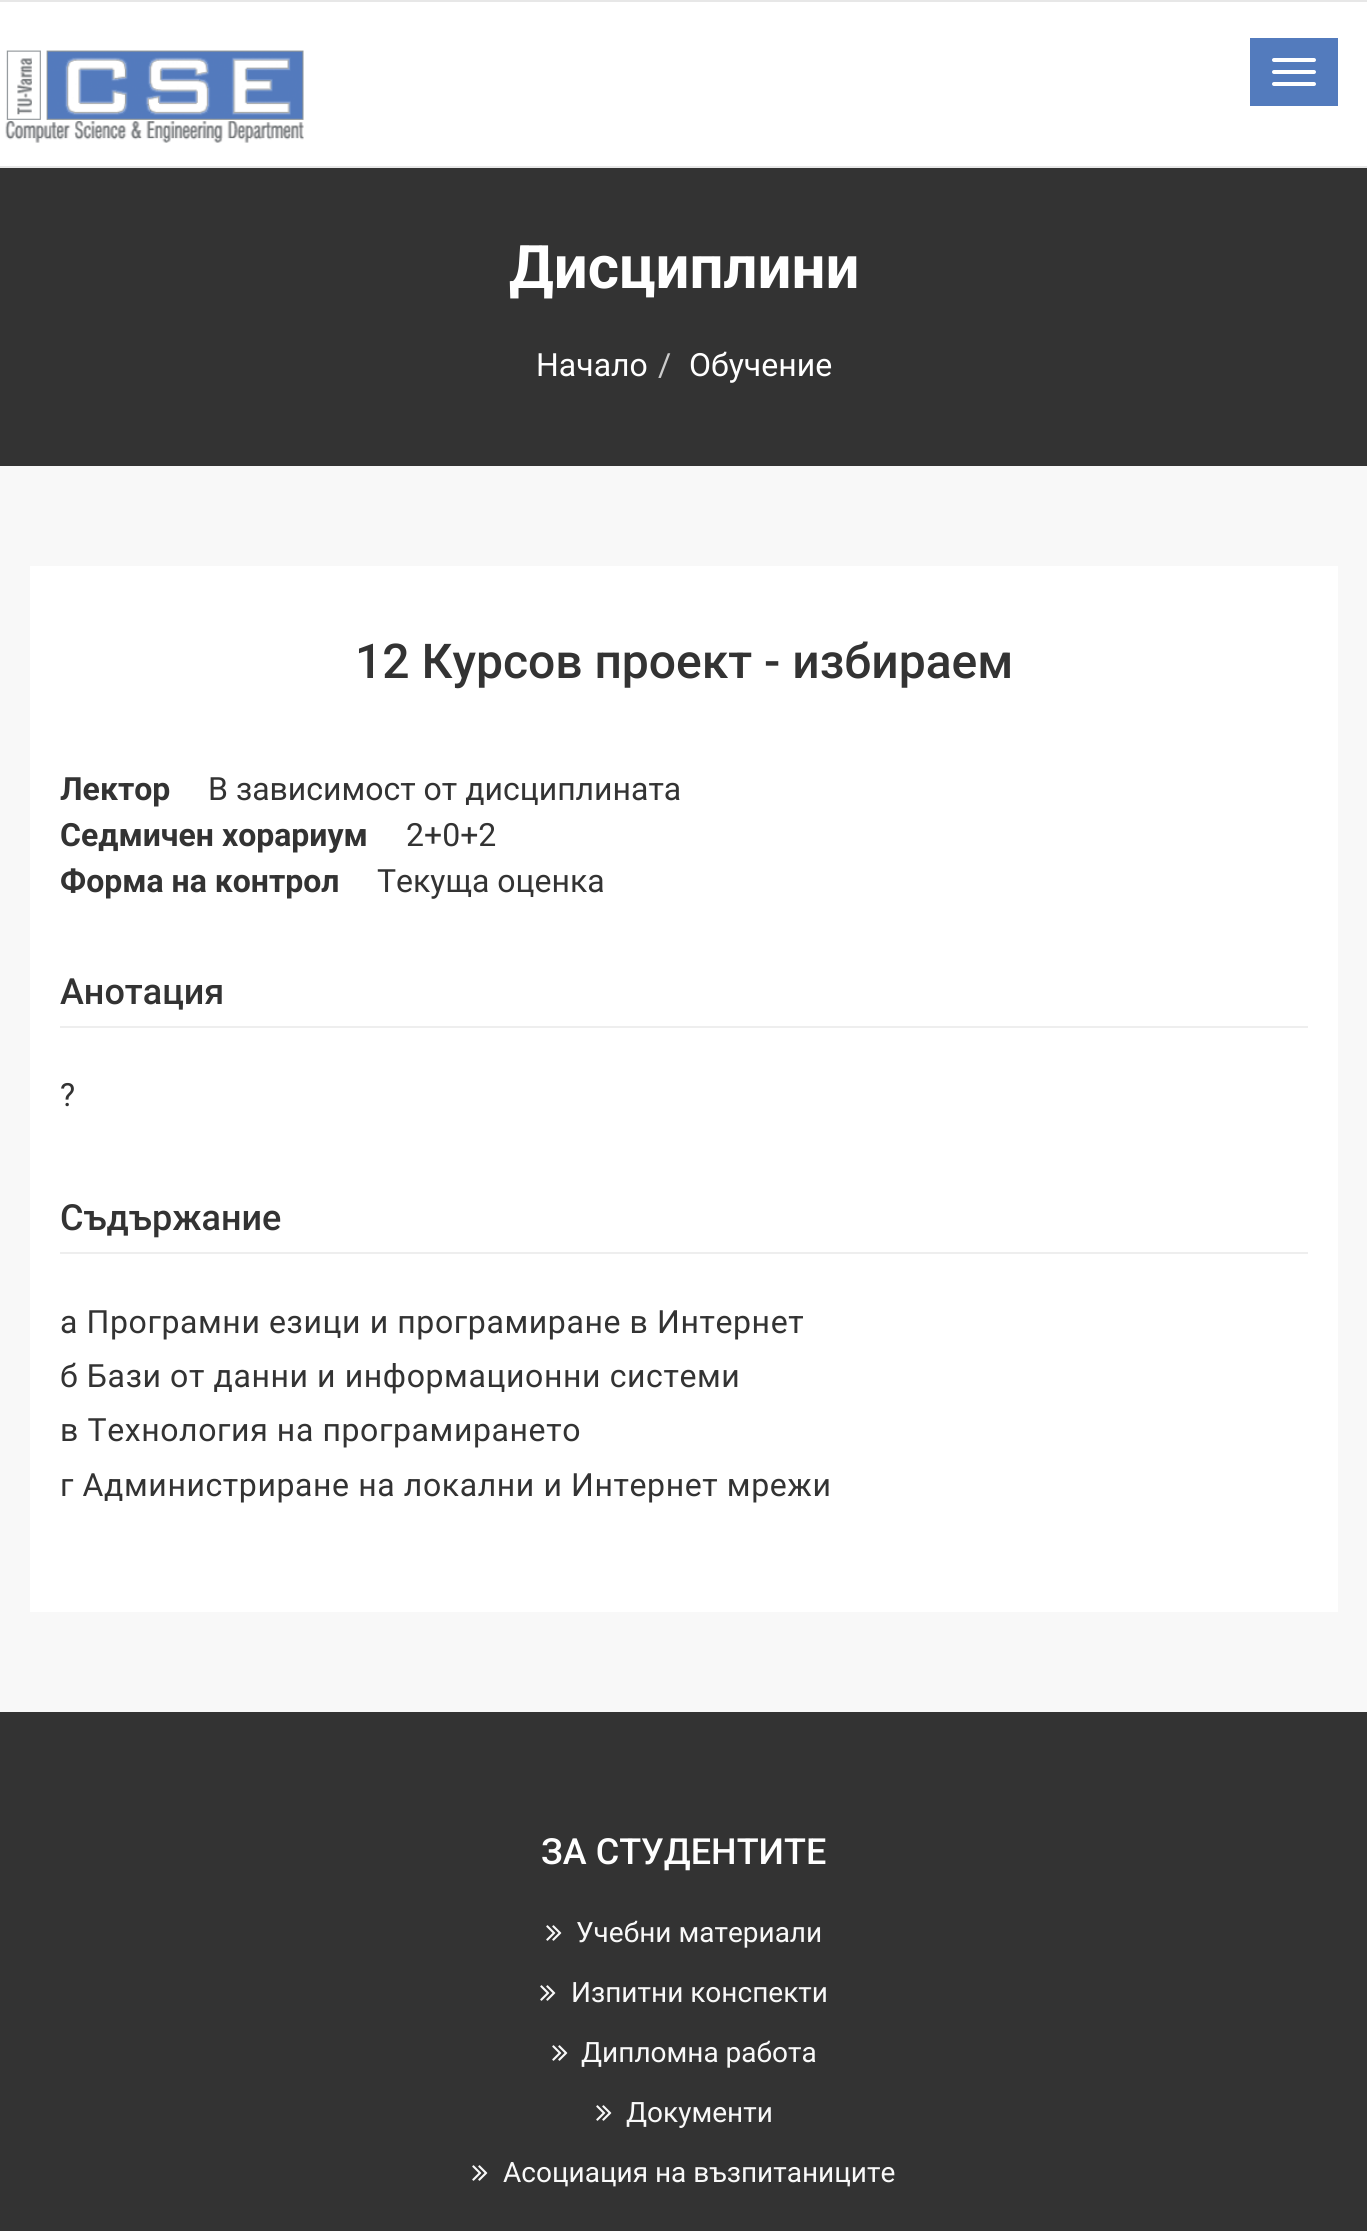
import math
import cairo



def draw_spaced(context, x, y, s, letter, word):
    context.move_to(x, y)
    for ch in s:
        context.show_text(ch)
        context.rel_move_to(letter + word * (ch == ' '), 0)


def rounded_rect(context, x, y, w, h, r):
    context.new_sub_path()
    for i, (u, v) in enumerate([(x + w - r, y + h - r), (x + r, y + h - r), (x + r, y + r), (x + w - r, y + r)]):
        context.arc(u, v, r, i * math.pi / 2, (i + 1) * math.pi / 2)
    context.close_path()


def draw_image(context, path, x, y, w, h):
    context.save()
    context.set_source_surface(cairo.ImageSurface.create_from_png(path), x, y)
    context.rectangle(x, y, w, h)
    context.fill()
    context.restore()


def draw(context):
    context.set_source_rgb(1, 1, 1)
    context.paint()
    context.set_source_rgb(231 / 255, 231 / 255, 231 / 255)
    context.rectangle(0, 0, 1367, 2)
    context.fill()
    context.rectangle(0, 166, 1367, 2)
    context.fill()
    draw_image(context, "images/1.png", 5, 50, 299, 93)
    context.set_source_rgb(83 / 255, 123 / 255, 189 / 255)
    context.rectangle(1250, 38, 88, 68)
    context.fill()
    context.set_source_rgb(1, 1, 1)
    rounded_rect(context, 1272, 58, 44, 4, 2)
    context.fill()
    rounded_rect(context, 1272, 70, 44, 4, 2)
    context.fill()
    rounded_rect(context, 1272, 82, 44, 4, 2)
    context.fill()
    context.set_source_rgb(51 / 255, 51 / 255, 51 / 255)
    context.rectangle(0, 168, 1367, 298)
    context.fill()
    context.set_source_rgb(248 / 255, 248 / 255, 248 / 255)
    context.rectangle(0, 466, 1367, 1246)
    context.fill()
    context.set_source_rgb(1, 1, 1)
    context.rectangle(30, 566, 1308, 1046)
    context.fill()
    context.set_source_rgb(238 / 255, 238 / 255, 238 / 255)
    context.rectangle(60, 1026, 1248, 2)
    context.fill()
    context.rectangle(60, 1252, 1248, 2)
    context.fill()
    context.set_source_rgb(51 / 255, 51 / 255, 51 / 255)
    context.rectangle(0, 1712, 1367, 519)
    context.fill()
    draw_image(context, "images/2.png", 546, 1925, 16, 16)
    draw_image(context, "images/2.png", 540, 1985, 16, 16)
    draw_image(context, "images/2.png", 552, 2045, 16, 16)
    draw_image(context, "images/2.png", 596, 2105, 16, 16)
    draw_image(context, "images/2.png", 472, 2165, 16, 16)
    context.select_font_face("Roboto", cairo.FontSlant.NORMAL, cairo.FontWeight.BOLD)
    context.set_font_size(60)
    context.set_source_rgb(1, 1, 1)
    context.move_to(509, 288)
    context.show_text("Дисциплини")
    context.select_font_face("Roboto")
    context.set_font_size(32)
    context.move_to(536, 376)
    context.show_text("Начало")
    context.set_source_rgb(204 / 255, 204 / 255, 204 / 255)
    context.move_to(658, 376)
    context.show_text("/")
    context.set_source_rgb(1, 1, 1)
    context.move_to(689, 376)
    context.show_text("Обучение")
    context.select_font_face("Roboto Medium")
    context.set_font_size(48)
    context.set_source_rgb(51 / 255, 51 / 255, 51 / 255)
    context.move_to(355, 678)
    context.show_text("12 Курсов проект - избираем")
    context.select_font_face("Roboto", cairo.FontSlant.NORMAL, cairo.FontWeight.BOLD)
    context.set_font_size(32)
    context.move_to(60, 800)
    context.show_text("Лектор")
    context.select_font_face("Roboto")
    context.move_to(208, 800)
    context.show_text("В зависимост от дисциплината")
    context.select_font_face("Roboto", cairo.FontSlant.NORMAL, cairo.FontWeight.BOLD)
    context.move_to(60, 846)
    context.show_text("Седмичен хорариум")
    context.select_font_face("Roboto")
    context.move_to(406, 846)
    context.show_text("2+0+2")
    context.select_font_face("Roboto", cairo.FontSlant.NORMAL, cairo.FontWeight.BOLD)
    context.move_to(60, 892)
    context.show_text("Форма на контрол")
    context.select_font_face("Roboto")
    context.move_to(377, 892)
    context.show_text("Текуща оценка")
    context.select_font_face("Roboto Medium")
    context.set_font_size(36)
    context.move_to(60, 1004)
    context.show_text("Анотация")
    context.select_font_face("Roboto")
    context.set_font_size(32)
    draw_spaced(context, 60, 1106, "?", 0.6, 0)
    context.select_font_face("Roboto Medium")
    context.set_font_size(36)
    context.move_to(60, 1230)
    context.show_text("Съдържание")
    context.select_font_face("Roboto")
    context.set_font_size(32)
    draw_spaced(context, 60, 1333, "а Програмни езици и програмиране в Интернет", 0.6, 0)
    draw_spaced(context, 60, 1387, "б Бази от данни и информационни системи", 0.6, 0)
    draw_spaced(context, 60, 1441, "в Технология на програмирането", 0.6, 0)
    draw_spaced(context, 60, 1496, "г Администриране на локални и Интернет мрежи", 0.6, 0)
    context.select_font_face("Roboto Medium")
    context.set_font_size(36)
    context.set_source_rgb(1, 1, 1)
    context.move_to(541, 1864)
    context.show_text("ЗА СТУДЕНТИТЕ")
    context.select_font_face("Roboto")
    context.set_font_size(28)
    context.set_source_rgb(249 / 255, 249 / 255, 249 / 255)
    context.move_to(576, 1942)
    context.show_text("Учебни материали")
    context.move_to(571, 2002)
    context.show_text("Изпитни конспекти")
    context.move_to(581, 2062)
    context.show_text("Дипломна работа")
    context.move_to(626, 2122)
    context.show_text("Документи")
    context.move_to(503, 2182)
    context.show_text("Асоциация на възпитаниците")


surface = cairo.ImageSurface(cairo.Format.RGB24, 1367, 2231)
context = cairo.Context(surface)
options = cairo.FontOptions()
options.set_hint_metrics(cairo.HintMetrics.OFF)
options.set_hint_style(cairo.HintStyle.NONE)
context.set_font_options(options)
context.set_miter_limit(4)
draw(context)
surface.write_to_png("out.png")
